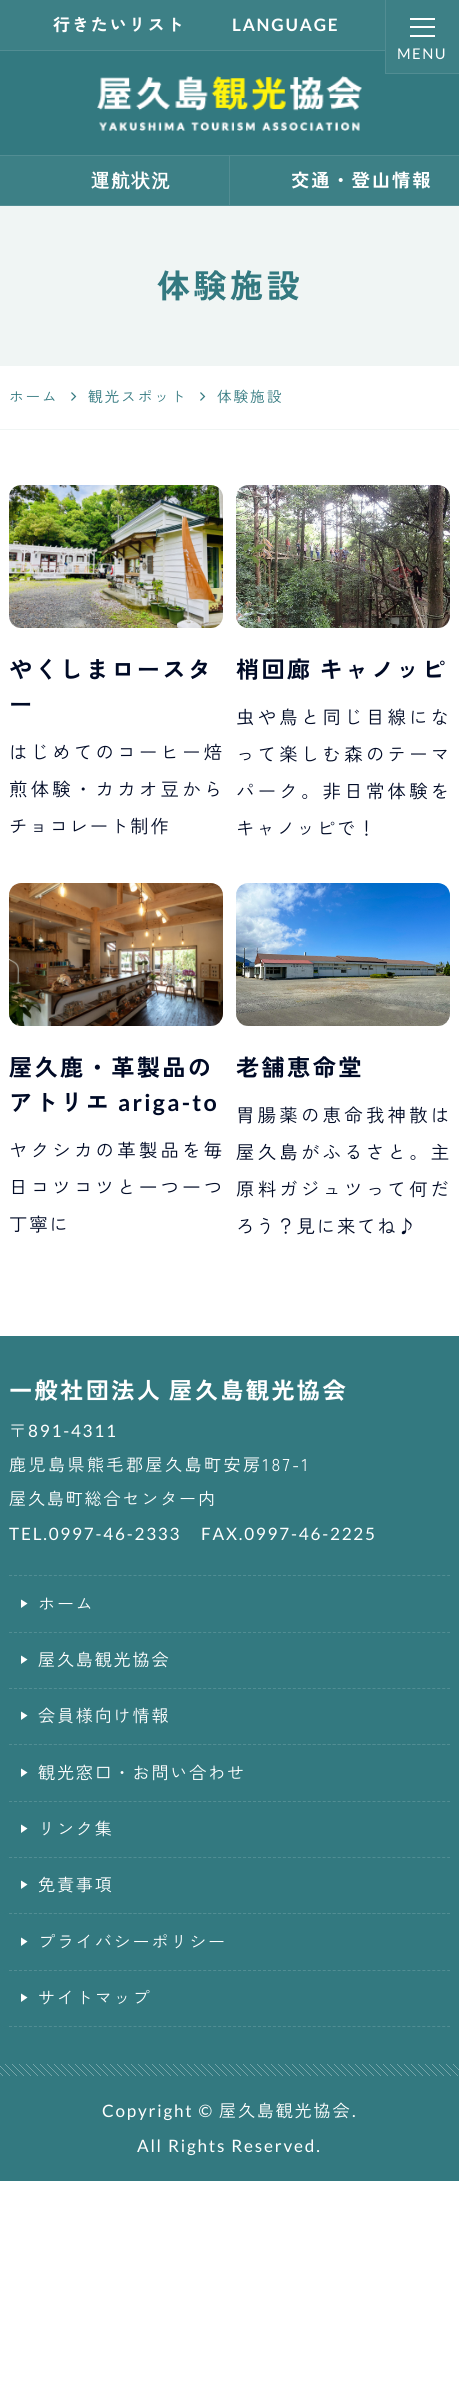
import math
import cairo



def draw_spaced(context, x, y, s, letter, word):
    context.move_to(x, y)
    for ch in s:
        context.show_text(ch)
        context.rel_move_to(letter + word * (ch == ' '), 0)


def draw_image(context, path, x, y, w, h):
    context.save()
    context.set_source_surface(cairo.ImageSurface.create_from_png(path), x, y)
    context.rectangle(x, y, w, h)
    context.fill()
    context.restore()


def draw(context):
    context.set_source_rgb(1, 1, 1)
    context.paint()
    context.set_source_rgb(61 / 255, 128 / 255, 134 / 255)
    context.rectangle(0, 0, 385, 50)
    context.fill()
    context.set_source_rgb(82 / 255, 141 / 255, 147 / 255)
    context.rectangle(0, 50, 385, 1)
    context.fill()
    context.set_source_rgb(51 / 255, 121 / 255, 128 / 255)
    context.rectangle(0, 51, 459, 104)
    context.fill()
    draw_image(context, "images/1.png", 97, 76, 265, 55)
    context.set_source_rgb(61 / 255, 128 / 255, 134 / 255)
    context.rectangle(386, 0, 73, 73)
    context.fill()
    context.set_source_rgb(82 / 255, 141 / 255, 147 / 255)
    context.rectangle(385, 73, 74, 1)
    context.fill()
    context.rectangle(385, 0, 1, 74)
    context.fill()
    context.set_source_rgb(1, 1, 1)
    context.rectangle(410, 18, 25, 2)
    context.fill()
    context.rectangle(410, 26, 25, 2)
    context.fill()
    context.rectangle(410, 35, 25, 2)
    context.fill()
    context.set_source_rgb(61 / 255, 128 / 255, 134 / 255)
    context.rectangle(0, 156, 459, 49)
    context.fill()
    context.set_source_rgb(82 / 255, 141 / 255, 147 / 255)
    context.rectangle(0, 155, 459, 1)
    context.fill()
    context.rectangle(0, 205, 459, 1)
    context.fill()
    context.rectangle(229, 156, 1, 49)
    context.fill()
    context.set_source_rgb(240 / 255, 245 / 255, 244 / 255)
    context.rectangle(0, 206, 459, 160)
    context.fill()
    context.rectangle(0, 429, 459, 1)
    context.fill()
    draw_image(context, "images/2.png", 71, 392, 6, 9)
    draw_image(context, "images/2.png", 200, 392, 6, 9)
    draw_image(context, "images/3.png", 9, 485, 214, 143)
    draw_image(context, "images/4.png", 236, 485, 214, 143)
    draw_image(context, "images/5.png", 9, 883, 214, 143)
    draw_image(context, "images/6.png", 236, 883, 214, 143)
    context.set_source_rgb(51 / 255, 121 / 255, 128 / 255)
    context.rectangle(0, 1336, 459, 845)
    context.fill()
    context.new_path()
    context.move_to(9, 1575.5)
    context.line_to(450, 1575.5)
    context.set_source_rgb(82 / 255, 141 / 255, 147 / 255)
    context.set_line_width(1)
    context.set_dash([3, 1.98])
    context.stroke()
    context.new_path()
    context.move_to(9, 1632.5)
    context.line_to(450, 1632.5)
    context.stroke()
    context.set_source_rgb(1, 1, 1)
    context.new_path()
    context.move_to(27.5, 1603.5)
    context.line_to(21, 1599.5)
    context.line_to(21, 1608)
    context.close_path()
    context.fill()
    context.new_path()
    context.move_to(9, 1688.5)
    context.line_to(450, 1688.5)
    context.set_source_rgb(82 / 255, 141 / 255, 147 / 255)
    context.stroke()
    context.set_source_rgb(1, 1, 1)
    context.new_path()
    context.move_to(27.5, 1659.5)
    context.line_to(21, 1655.5)
    context.line_to(21, 1664)
    context.close_path()
    context.fill()
    context.new_path()
    context.move_to(9, 1744.5)
    context.line_to(450, 1744.5)
    context.set_source_rgb(82 / 255, 141 / 255, 147 / 255)
    context.stroke()
    context.set_source_rgb(1, 1, 1)
    context.new_path()
    context.move_to(27.5, 1715.5)
    context.line_to(21, 1711.5)
    context.line_to(21, 1720)
    context.close_path()
    context.fill()
    context.new_path()
    context.move_to(9, 1744.5)
    context.line_to(450, 1744.5)
    context.set_source_rgb(82 / 255, 141 / 255, 147 / 255)
    context.stroke()
    context.new_path()
    context.move_to(9, 1801.5)
    context.line_to(450, 1801.5)
    context.stroke()
    context.set_source_rgb(1, 1, 1)
    context.new_path()
    context.move_to(27.5, 1772.5)
    context.line_to(21, 1768.5)
    context.line_to(21, 1777)
    context.close_path()
    context.fill()
    context.new_path()
    context.move_to(9, 1857.5)
    context.line_to(450, 1857.5)
    context.set_source_rgb(82 / 255, 141 / 255, 147 / 255)
    context.stroke()
    context.set_source_rgb(1, 1, 1)
    context.new_path()
    context.move_to(27.5, 1828.5)
    context.line_to(21, 1824.5)
    context.line_to(21, 1833)
    context.close_path()
    context.fill()
    context.new_path()
    context.move_to(9, 1913.5)
    context.line_to(450, 1913.5)
    context.set_source_rgb(82 / 255, 141 / 255, 147 / 255)
    context.stroke()
    context.set_source_rgb(1, 1, 1)
    context.new_path()
    context.move_to(27.5, 1884.5)
    context.line_to(21, 1880.5)
    context.line_to(21, 1889)
    context.close_path()
    context.fill()
    context.new_path()
    context.move_to(9, 1913.5)
    context.line_to(450, 1913.5)
    context.set_source_rgb(82 / 255, 141 / 255, 147 / 255)
    context.stroke()
    context.new_path()
    context.move_to(9, 1970.5)
    context.line_to(450, 1970.5)
    context.stroke()
    context.set_source_rgb(1, 1, 1)
    context.new_path()
    context.move_to(27.5, 1941.5)
    context.line_to(21, 1937.5)
    context.line_to(21, 1946)
    context.close_path()
    context.fill()
    context.new_path()
    context.move_to(9, 2026.5)
    context.line_to(450, 2026.5)
    context.set_source_rgb(82 / 255, 141 / 255, 147 / 255)
    context.stroke()
    context.set_source_rgb(1, 1, 1)
    context.new_path()
    context.move_to(27.5, 1997.5)
    context.line_to(21, 1993.5)
    context.line_to(21, 2002)
    context.close_path()
    context.fill()
    draw_image(context, "images/7.png", 0, 2064, 459, 12)
    context.select_font_face("Zen Kaku Gothic New", cairo.FontSlant.NORMAL, cairo.FontWeight.BOLD)
    context.set_font_size(17.1)
    draw_spaced(context, 53, 31, "行きたいリスト", 1.8, 0)
    context.select_font_face("Lato", cairo.FontSlant.NORMAL, cairo.FontWeight.BOLD)
    draw_spaced(context, 232, 31, "LANGUAGE", 1.8, 0)
    context.select_font_face("Lato")
    context.set_font_size(14.75)
    draw_spaced(context, 397, 59, "MENU", 1.5, 0)
    context.select_font_face("WenQuanYi Zen Hei", cairo.FontSlant.NORMAL, cairo.FontWeight.BOLD)
    context.set_font_size(18.4)
    draw_spaced(context, 91, 187, "運航状況", 1.8, 0)
    context.select_font_face("Zen Kaku Gothic New", cairo.FontSlant.NORMAL, cairo.FontWeight.BOLD)
    draw_spaced(context, 291, 187, "交通・登山情報", 1.8, 0)
    context.set_font_size(33)
    context.set_source_rgb(51 / 255, 121 / 255, 128 / 255)
    draw_spaced(context, 157, 298, "体験施設", 3.5, 0)
    context.select_font_face("Zen Kaku Gothic New")
    context.set_font_size(14.75)
    draw_spaced(context, 9, 402, "ホーム", 1.8, 0)
    draw_spaced(context, 88, 402, "観光スポット", 1.8, 0)
    draw_spaced(context, 217, 402, "体験施設", 1.8, 0)
    context.select_font_face("Zen Kaku Gothic New", cairo.FontSlant.NORMAL, cairo.FontWeight.BOLD)
    context.set_font_size(23.25)
    context.set_source_rgb(0, 10 / 255, 38 / 255)
    draw_spaced(context, 9, 678, "やくしまロースタ", 2.3, 0)
    draw_spaced(context, 9, 713, "ー", 2.3, 0)
    context.select_font_face("Zen Kaku Gothic New")
    context.set_font_size(18.4)
    draw_spaced(context, 9, 759, "はじめてのコーヒー焙", 3.25, 0)
    draw_spaced(context, 9, 796, "煎体験・カカオ豆から", 3.25, 0)
    draw_spaced(context, 9, 833, "チョコレート制作", 1.8, 0)
    context.select_font_face("Zen Kaku Gothic New", cairo.FontSlant.NORMAL, cairo.FontWeight.BOLD)
    context.set_font_size(23.25)
    draw_spaced(context, 236, 678, "梢回廊 キャノッピ", 2.3, -2)
    context.select_font_face("Zen Kaku Gothic New")
    context.set_font_size(18.4)
    draw_spaced(context, 236, 724, "虫や鳥と同じ目線にな", 3.25, 0)
    draw_spaced(context, 236, 761, "って楽しむ森のテーマ", 3.25, 0)
    draw_spaced(context, 236, 798, "パーク。非日常体験を", 3.25, 0)
    draw_spaced(context, 236, 835, "キャノッピで！", 1.8, 0)
    context.select_font_face("Zen Kaku Gothic New", cairo.FontSlant.NORMAL, cairo.FontWeight.BOLD)
    context.set_font_size(23.25)
    draw_spaced(context, 9, 1076, "屋久鹿・革製品の", 2.3, 0)
    draw_spaced(context, 9, 1111, "アトリエ", 2.3, 0)
    context.select_font_face("Lato", cairo.FontSlant.NORMAL, cairo.FontWeight.BOLD)
    draw_spaced(context, 118, 1111, "ariga-to", 2.3, 0)
    context.select_font_face("Zen Kaku Gothic New")
    context.set_font_size(18.4)
    draw_spaced(context, 9, 1157, "ヤクシカの革製品を毎", 3.25, 0)
    draw_spaced(context, 9, 1194, "日コツコツと一つ一つ", 3.25, 0)
    draw_spaced(context, 9, 1231, "丁寧に", 1.8, 0)
    context.select_font_face("Zen Kaku Gothic New", cairo.FontSlant.NORMAL, cairo.FontWeight.BOLD)
    context.set_font_size(23.25)
    draw_spaced(context, 236, 1076, "老舗恵命堂", 2.3, 0)
    context.select_font_face("Zen Kaku Gothic New")
    context.set_font_size(18.4)
    draw_spaced(context, 236, 1122, "胃腸薬の恵命我神散は", 3.25, 0)
    draw_spaced(context, 236, 1159, "屋久島がふるさと。主", 3.25, 0)
    draw_spaced(context, 236, 1196, "原料ガジュツって何だ", 3.25, 0)
    draw_spaced(context, 236, 1233, "ろう？見に来てね♪", 1.8, 0)
    context.select_font_face("Zen Kaku Gothic New", cairo.FontSlant.NORMAL, cairo.FontWeight.BOLD)
    context.set_font_size(23.25)
    context.set_source_rgb(1, 1, 1)
    draw_spaced(context, 9, 1399, "一般社団法人 屋久島観光協会", 2.3, -2)
    context.select_font_face("Zen Kaku Gothic New")
    context.set_font_size(17.1)
    draw_spaced(context, 9, 1437, "〒", 1.8, 0)
    context.select_font_face("Lato")
    draw_spaced(context, 28, 1437, "891-4311", 1.8, 0)
    context.select_font_face("Zen Kaku Gothic New")
    draw_spaced(context, 9, 1471, "鹿児島県熊毛郡屋久島町安房187-1", 2.4, 0)
    draw_spaced(context, 9, 1505, "屋久島町総合センター内", 1.8, 0)
    context.select_font_face("Lato")
    draw_spaced(context, 9, 1540, "TEL.0997-46-2333", 1.8, 0)
    draw_spaced(context, 201, 1540, "FAX.0997-46-2225", 1.8, 0)
    context.select_font_face("Zen Kaku Gothic New")
    draw_spaced(context, 38, 1610, "ホーム", 1.8, 0)
    draw_spaced(context, 38, 1666, "屋久島観光協会", 1.8, 0)
    draw_spaced(context, 38, 1722, "会員様向け情報", 1.8, 0)
    draw_spaced(context, 38, 1779, "観光窓口・お問い合わせ", 1.8, 0)
    draw_spaced(context, 38, 1835, "リンク集", 1.8, 0)
    draw_spaced(context, 38, 1891, "免責事項", 1.8, 0)
    draw_spaced(context, 38, 1948, "プライバシーポリシー", 1.8, 0)
    draw_spaced(context, 38, 2004, "サイトマップ", 1.8, 0)
    context.select_font_face("Lato")
    draw_spaced(context, 102, 2117, "Copyright ©", 1.8, 0)
    context.select_font_face("Zen Kaku Gothic New")
    draw_spaced(context, 219, 2117, "屋久島観光協会", 1.8, 0)
    context.select_font_face("Lato")
    draw_spaced(context, 352, 2117, ".", 1.8, 0)
    draw_spaced(context, 137, 2152, "All Rights Reserved.", 1.8, 0)


surface = cairo.ImageSurface(cairo.Format.RGB24, 459, 2405)
context = cairo.Context(surface)
options = cairo.FontOptions()
options.set_hint_metrics(cairo.HintMetrics.OFF)
options.set_hint_style(cairo.HintStyle.NONE)
context.set_font_options(options)
context.set_miter_limit(4)
draw(context)
surface.write_to_png("out.png")
